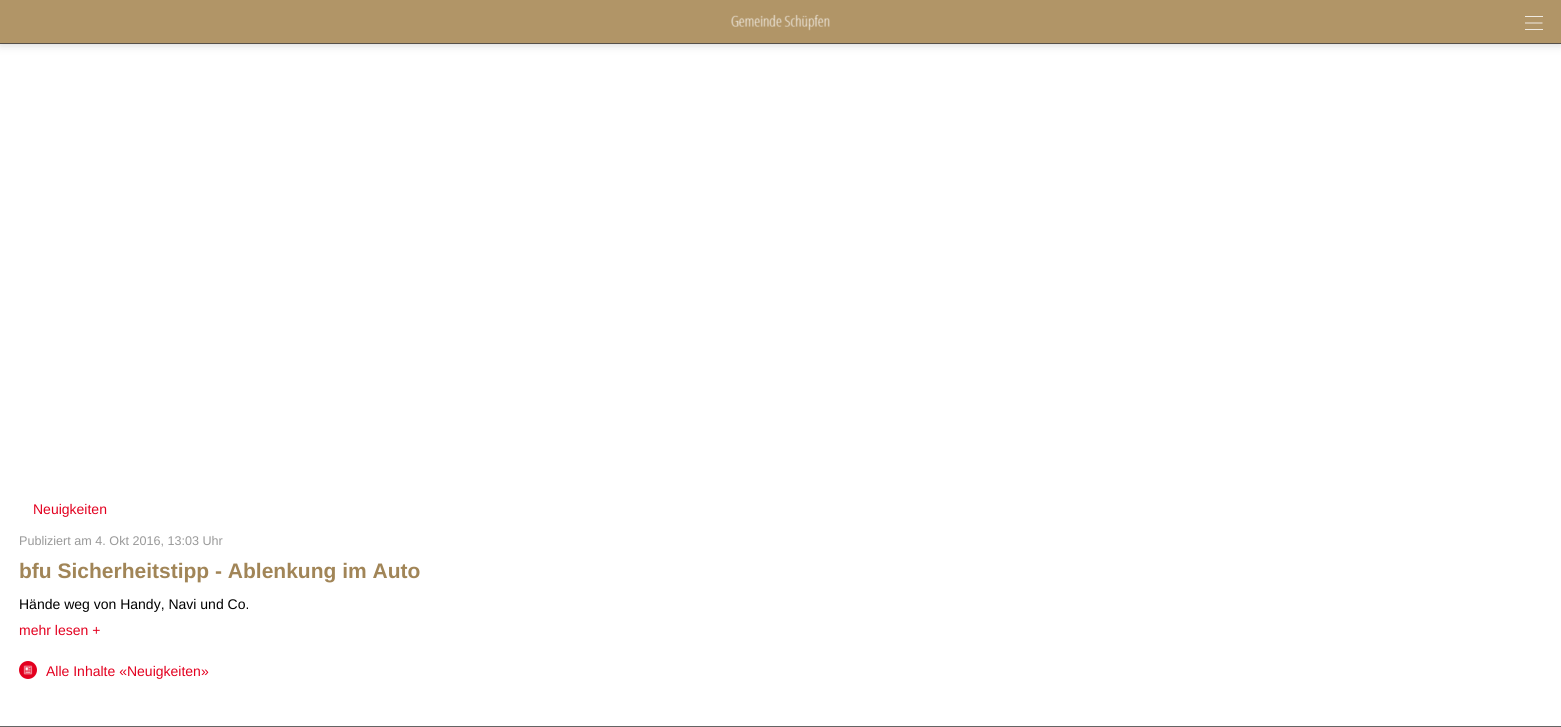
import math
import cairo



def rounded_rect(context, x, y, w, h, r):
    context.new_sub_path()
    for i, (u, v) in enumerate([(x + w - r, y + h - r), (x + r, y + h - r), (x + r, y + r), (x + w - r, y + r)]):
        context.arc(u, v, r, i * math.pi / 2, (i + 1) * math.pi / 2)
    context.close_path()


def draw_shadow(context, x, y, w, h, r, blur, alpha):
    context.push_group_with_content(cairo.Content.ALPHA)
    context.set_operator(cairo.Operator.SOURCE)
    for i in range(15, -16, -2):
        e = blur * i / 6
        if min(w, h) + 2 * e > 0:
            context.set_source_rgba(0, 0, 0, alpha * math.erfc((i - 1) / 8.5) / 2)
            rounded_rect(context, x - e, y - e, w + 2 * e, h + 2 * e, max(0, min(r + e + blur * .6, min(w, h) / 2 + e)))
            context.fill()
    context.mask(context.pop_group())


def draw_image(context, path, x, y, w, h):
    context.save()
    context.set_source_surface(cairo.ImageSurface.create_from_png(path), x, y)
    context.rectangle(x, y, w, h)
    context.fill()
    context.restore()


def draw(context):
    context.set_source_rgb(1, 1, 1)
    context.paint()
    context.set_source_rgb(0, 0, 0)
    draw_shadow(context, 0, 0, 1561, 44, 0, 5, 0.2)
    context.set_source_rgb(177 / 255, 149 / 255, 103 / 255)
    context.rectangle(0, 0, 1561, 43)
    context.fill()
    context.set_source_rgb(86 / 255, 80 / 255, 73 / 255)
    context.rectangle(0, 43, 1561, 1)
    context.fill()
    draw_image(context, "images/1.png", 731, 14, 99, 17)
    context.set_source_rgb(239 / 255, 234 / 255, 225 / 255)
    context.rectangle(1525, 16, 18, 1)
    context.fill()
    context.new_path()
    context.move_to(1525, 23)
    context.line_to(1542.5, 23)
    context.set_source_rgb(1, 1, 1)
    context.set_line_width(0.8)
    context.set_line_join(cairo.LineJoin.ROUND)
    context.stroke()
    context.set_source_rgb(239 / 255, 234 / 255, 225 / 255)
    context.rectangle(1525, 29, 18, 1)
    context.fill()
    context.set_source_rgb(227 / 255, 0, 31 / 255)
    context.arc(28, 670, 9, 0, 2 * math.pi)
    context.fill()
    draw_image(context, "images/2.png", 23, 665, 10, 10)
    context.set_source_rgb(100 / 255, 100 / 255, 100 / 255)
    context.rectangle(0, 726, 1561, 1)
    context.fill()
    context.select_font_face("Liberation Sans")
    context.set_font_size(14)
    context.set_source_rgb(227 / 255, 0, 31 / 255)
    context.move_to(33, 514)
    context.show_text("Neuigkeiten")
    context.set_font_size(12.6)
    context.set_source_rgb(153 / 255, 153 / 255, 153 / 255)
    context.move_to(19, 545)
    context.show_text("Publiziert am 4. Okt 2016, 13:03 Uhr")
    context.select_font_face("Liberation Sans", cairo.FontSlant.NORMAL, cairo.FontWeight.BOLD)
    context.set_font_size(21)
    context.set_source_rgb(161 / 255, 133 / 255, 87 / 255)
    context.move_to(19, 578)
    context.show_text("bfu Sicherheitstipp - Ablenkung im Auto")
    context.select_font_face("Liberation Sans")
    context.set_font_size(14)
    context.set_source_rgb(0, 0, 0)
    context.move_to(19, 609)
    context.show_text("Hände weg von Handy, Navi und Co.")
    context.set_source_rgb(227 / 255, 0, 31 / 255)
    context.move_to(19, 635)
    context.show_text("mehr lesen +")
    context.move_to(46, 676)
    context.show_text("Alle Inhalte «Neuigkeiten»")


surface = cairo.ImageSurface(cairo.Format.RGB24, 1561, 727)
context = cairo.Context(surface)
options = cairo.FontOptions()
options.set_hint_metrics(cairo.HintMetrics.OFF)
options.set_hint_style(cairo.HintStyle.NONE)
context.set_font_options(options)
context.set_miter_limit(4)
draw(context)
surface.write_to_png("out.png")
